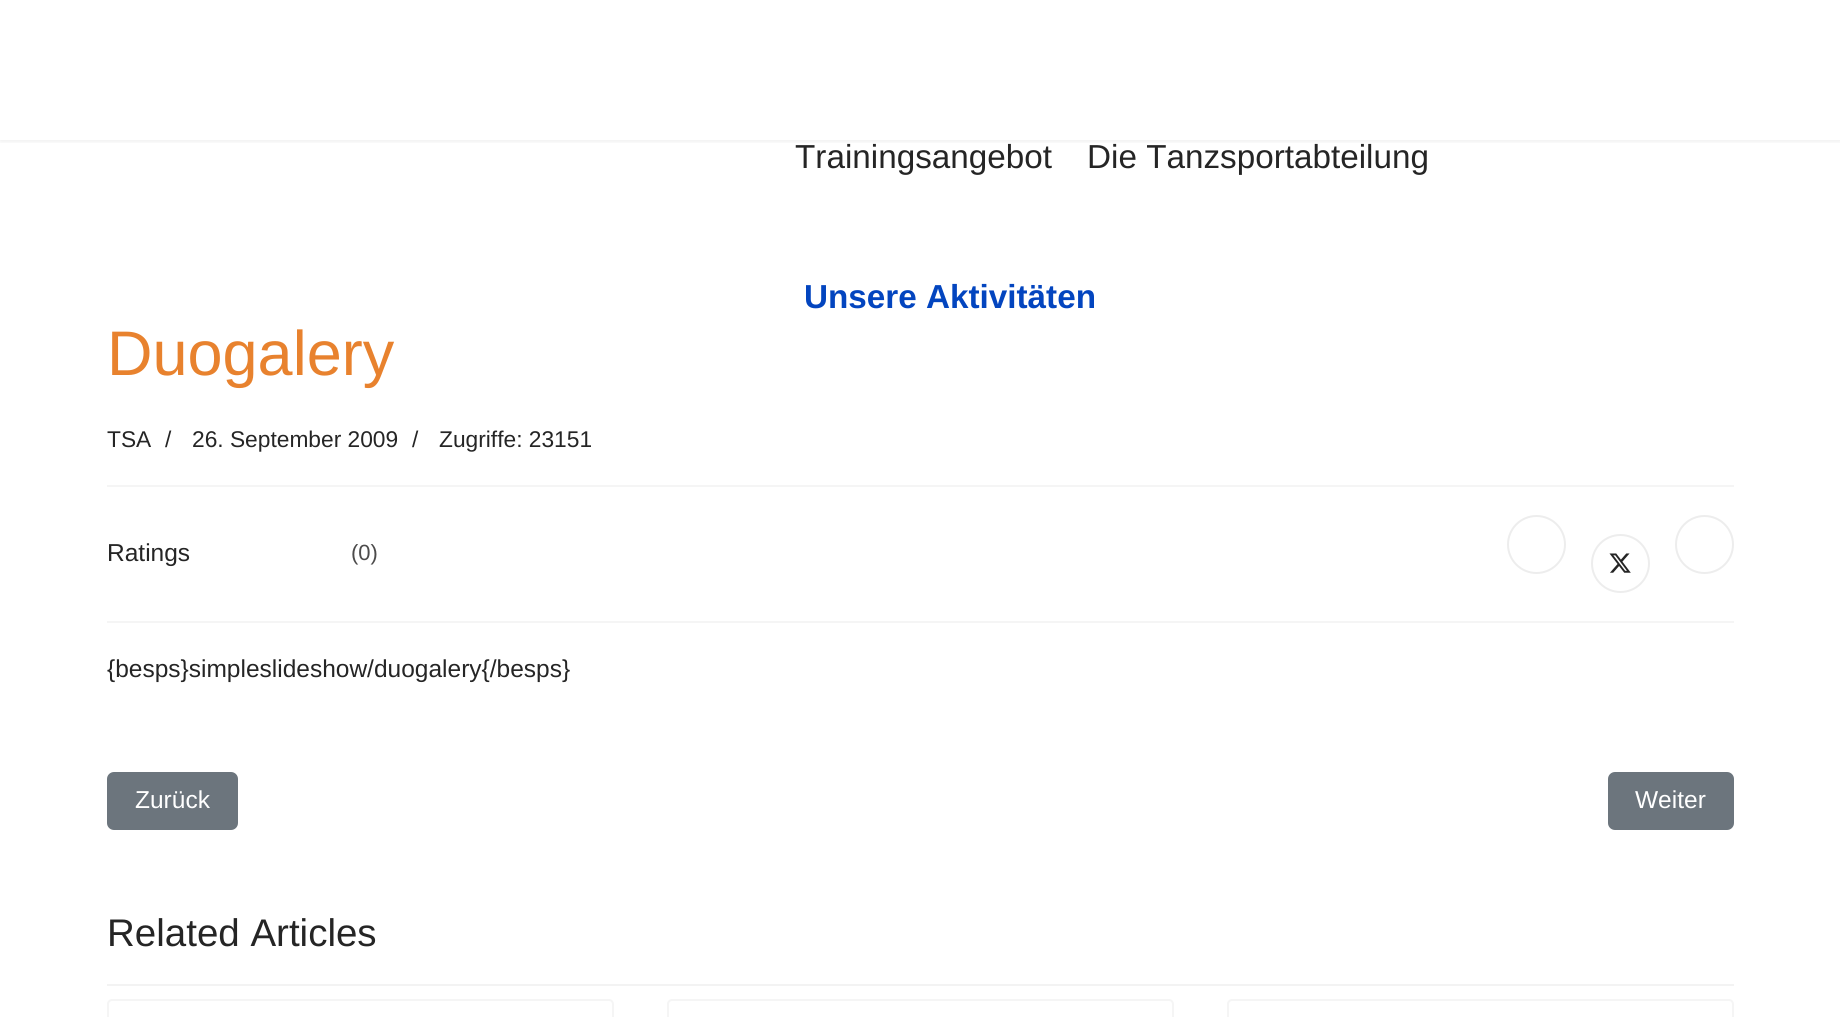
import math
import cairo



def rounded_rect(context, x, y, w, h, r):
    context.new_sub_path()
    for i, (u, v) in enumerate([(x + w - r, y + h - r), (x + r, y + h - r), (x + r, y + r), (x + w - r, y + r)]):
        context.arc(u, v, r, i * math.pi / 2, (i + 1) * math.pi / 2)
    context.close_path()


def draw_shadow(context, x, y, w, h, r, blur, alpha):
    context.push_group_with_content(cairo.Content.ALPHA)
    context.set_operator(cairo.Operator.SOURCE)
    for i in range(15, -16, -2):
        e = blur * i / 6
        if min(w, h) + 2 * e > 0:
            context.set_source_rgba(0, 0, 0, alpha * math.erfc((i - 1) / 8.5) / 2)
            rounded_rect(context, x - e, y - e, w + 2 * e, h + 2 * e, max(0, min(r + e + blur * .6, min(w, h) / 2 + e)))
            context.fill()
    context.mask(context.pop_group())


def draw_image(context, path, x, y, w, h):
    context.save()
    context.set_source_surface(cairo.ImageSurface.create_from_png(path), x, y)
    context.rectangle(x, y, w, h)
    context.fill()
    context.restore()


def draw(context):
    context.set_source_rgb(1, 1, 1)
    context.paint()
    context.save()
    context.rectangle(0, 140, 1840, 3)
    context.clip()
    context.set_source_rgb(0, 0, 0)
    draw_shadow(context, 0, 0, 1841, 140, 0, 3.5, 0.1)
    context.restore()
    context.set_source_rgb(245 / 255, 245 / 255, 245 / 255)
    context.rectangle(107, 485, 1627, 2)
    context.fill()
    context.rectangle(107, 621, 1627, 2)
    context.fill()
    context.arc(1536.5, 544.5, 28.5, 0, 2 * math.pi)
    context.set_source_rgb(237 / 255, 237 / 255, 237 / 255)
    context.stroke()
    context.arc(1620.5, 563.5, 28.5, 0, 2 * math.pi)
    context.stroke()
    draw_image(context, "images/1.png", 1609, 553, 22, 20)
    context.arc(1704.5, 544.5, 28.5, 0, 2 * math.pi)
    context.stroke()
    context.set_source_rgb(108 / 255, 117 / 255, 125 / 255)
    rounded_rect(context, 108, 773, 129, 56, 6)
    context.fill_preserve()
    context.stroke()
    rounded_rect(context, 1609, 773, 124, 56, 6)
    context.fill_preserve()
    context.stroke()
    context.set_source_rgb(243 / 255, 243 / 255, 243 / 255)
    context.rectangle(107, 984, 1627, 2)
    context.fill()
    rounded_rect(context, 108, 1000, 505, 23, 4)
    context.set_source_rgb(245 / 255, 245 / 255, 245 / 255)
    context.stroke()
    rounded_rect(context, 668, 1000, 505, 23, 4)
    context.stroke()
    rounded_rect(context, 1228, 1000, 505, 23, 4)
    context.stroke()
    context.select_font_face("Liberation Sans")
    context.set_font_size(33.25)
    context.set_source_rgb(37 / 255, 37 / 255, 37 / 255)
    context.move_to(795, 168)
    context.show_text("Trainingsangebot")
    context.move_to(1087, 168)
    context.show_text("Die Tanzsportabteilung")
    context.select_font_face("Liberation Sans", cairo.FontSlant.NORMAL, cairo.FontWeight.BOLD)
    context.set_source_rgb(3 / 255, 69 / 255, 191 / 255)
    context.move_to(804, 308)
    context.show_text("Unsere Aktivitäten")
    context.select_font_face("Liberation Sans")
    context.set_font_size(63)
    context.set_source_rgb(232 / 255, 130 / 255, 46 / 255)
    context.move_to(107, 375)
    context.show_text("Duogalery")
    context.set_font_size(22.75)
    context.set_source_rgb(37 / 255, 37 / 255, 37 / 255)
    context.move_to(107, 447)
    context.show_text("TSA")
    context.move_to(165, 447)
    context.show_text("/")
    context.move_to(192, 447)
    context.show_text("26. September 2009")
    context.move_to(412, 447)
    context.show_text("/")
    context.move_to(439, 447)
    context.show_text("Zugriffe: 23151")
    context.set_font_size(24.5)
    context.move_to(107, 561)
    context.show_text("Ratings")
    context.set_font_size(22)
    context.set_source_rgb(76 / 255, 75 / 255, 75 / 255)
    context.move_to(351, 560)
    context.show_text("(0)")
    context.set_font_size(24.5)
    context.set_source_rgb(37 / 255, 37 / 255, 37 / 255)
    context.move_to(107, 677)
    context.show_text("{besps}simpleslideshow/duogalery{/besps}")
    context.set_source_rgb(1, 1, 1)
    context.move_to(135, 808)
    context.show_text("Zurück")
    context.move_to(1635, 808)
    context.show_text("Weiter")
    context.set_font_size(38.5)
    context.set_source_rgb(37 / 255, 37 / 255, 37 / 255)
    context.move_to(107, 946)
    context.show_text("Related Articles")


surface = cairo.ImageSurface(cairo.Format.RGB24, 1840, 1017)
context = cairo.Context(surface)
options = cairo.FontOptions()
options.set_hint_metrics(cairo.HintMetrics.OFF)
options.set_hint_style(cairo.HintStyle.NONE)
context.set_font_options(options)
context.set_miter_limit(4)
draw(context)
surface.write_to_png("out.png")
